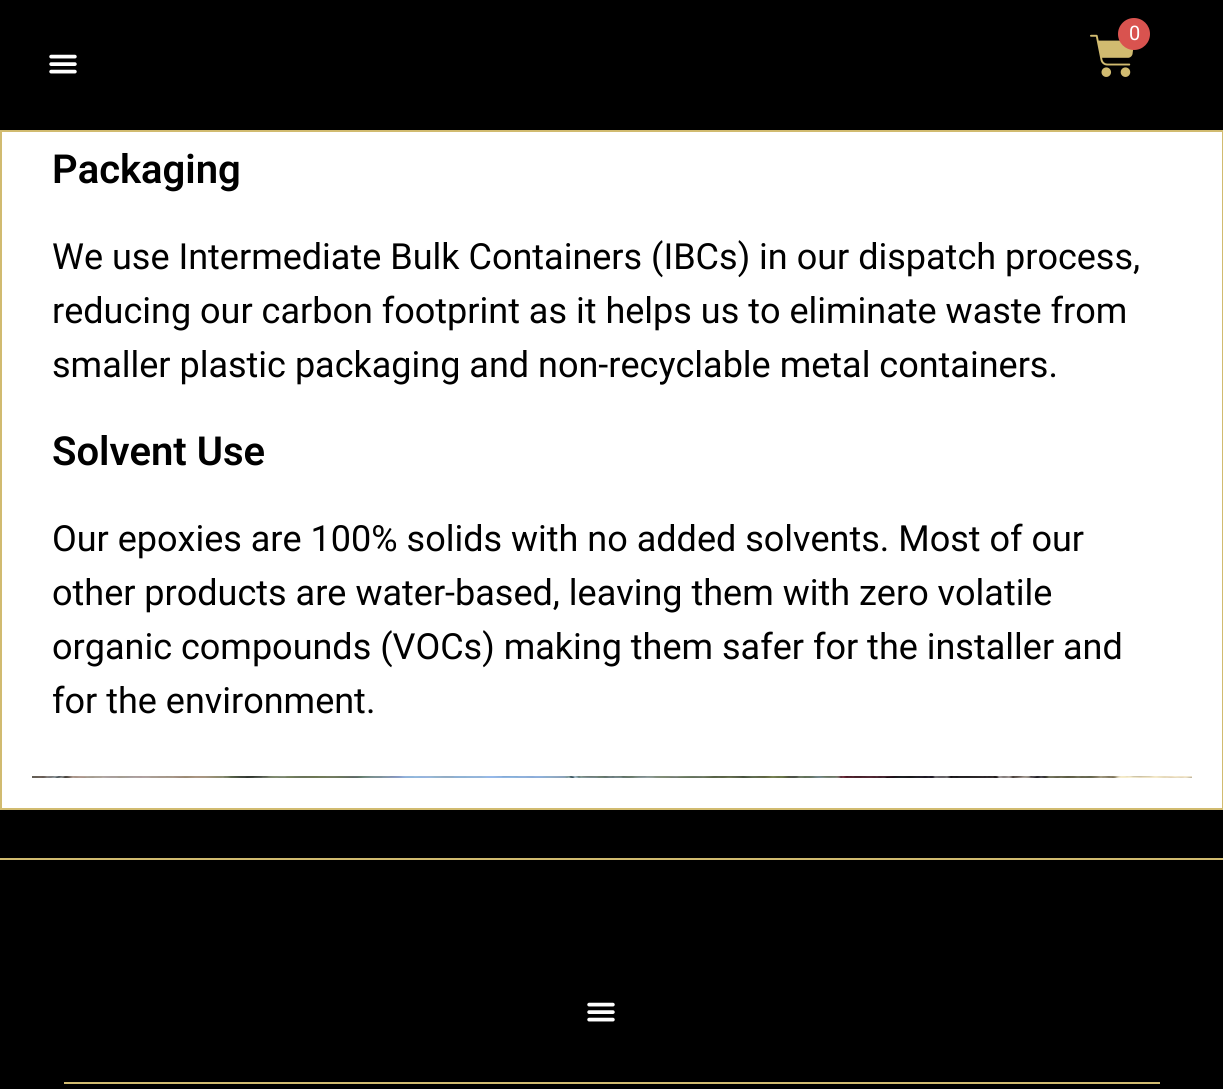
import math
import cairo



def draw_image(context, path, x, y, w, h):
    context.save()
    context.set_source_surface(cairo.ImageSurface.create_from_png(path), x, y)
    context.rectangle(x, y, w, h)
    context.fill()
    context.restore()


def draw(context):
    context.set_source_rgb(0, 0, 0)
    context.paint()
    context.set_source_rgb(1, 1, 1)
    context.rectangle(2, 132, 1220, 676)
    context.fill()
    context.rectangle(1, -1, 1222, 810)
    context.set_source_rgb(209 / 255, 187 / 255, 112 / 255)
    context.stroke()
    context.set_source_rgb(0, 0, 0)
    context.rectangle(0, 0, 1223, 130)
    context.fill()
    context.set_source_rgb(209 / 255, 187 / 255, 112 / 255)
    context.rectangle(0, 130, 1223, 2)
    context.fill()
    draw_image(context, "images/1.png", 1090, 34, 44, 43)
    context.set_source_rgb(217 / 255, 83 / 255, 79 / 255)
    context.arc(1134, 34, 16, 0, 2 * math.pi)
    context.fill()
    draw_image(context, "images/2.png", 49, 54, 28, 20)
    draw_image(context, "images/3.png", 32, 776, 1160, 2)
    context.set_source_rgb(209 / 255, 187 / 255, 112 / 255)
    context.rectangle(0, 858, 1223, 2)
    context.fill()
    draw_image(context, "images/2.png", 587, 1002, 28, 20)
    context.rectangle(64, 1082, 1096, 2)
    context.fill()
    context.select_font_face("Roboto")
    context.set_font_size(20)
    context.set_source_rgb(1, 1, 1)
    context.move_to(1129, 40)
    context.show_text("0")
    context.select_font_face("Roboto SemiBold")
    context.set_font_size(40)
    context.set_source_rgb(0, 0, 0)
    context.move_to(52, 183)
    context.show_text("Packaging")
    context.select_font_face("Roboto")
    context.set_font_size(36)
    context.move_to(52, 269)
    context.show_text("We use Intermediate Bulk Containers (IBCs) in our dispatch process,")
    context.move_to(52, 323)
    context.show_text("reducing our carbon footprint as it helps us to eliminate waste from")
    context.move_to(52, 377)
    context.show_text("smaller plastic packaging and non-recyclable metal containers.")
    context.select_font_face("Roboto SemiBold")
    context.set_font_size(40)
    context.move_to(52, 465)
    context.show_text("Solvent Use")
    context.select_font_face("Roboto")
    context.set_font_size(36)
    context.move_to(52, 551)
    context.show_text("Our epoxies are 100% solids with no added solvents. Most of our")
    context.move_to(52, 605)
    context.show_text("other products are water-based, leaving them with zero volatile")
    context.move_to(52, 659)
    context.show_text("organic compounds (VOCs) making them safer for the installer and")
    context.move_to(52, 713)
    context.show_text("for the environment.")


surface = cairo.ImageSurface(cairo.Format.RGB24, 1223, 1089)
context = cairo.Context(surface)
options = cairo.FontOptions()
options.set_hint_metrics(cairo.HintMetrics.OFF)
options.set_hint_style(cairo.HintStyle.NONE)
context.set_font_options(options)
context.set_miter_limit(4)
draw(context)
surface.write_to_png("out.png")
